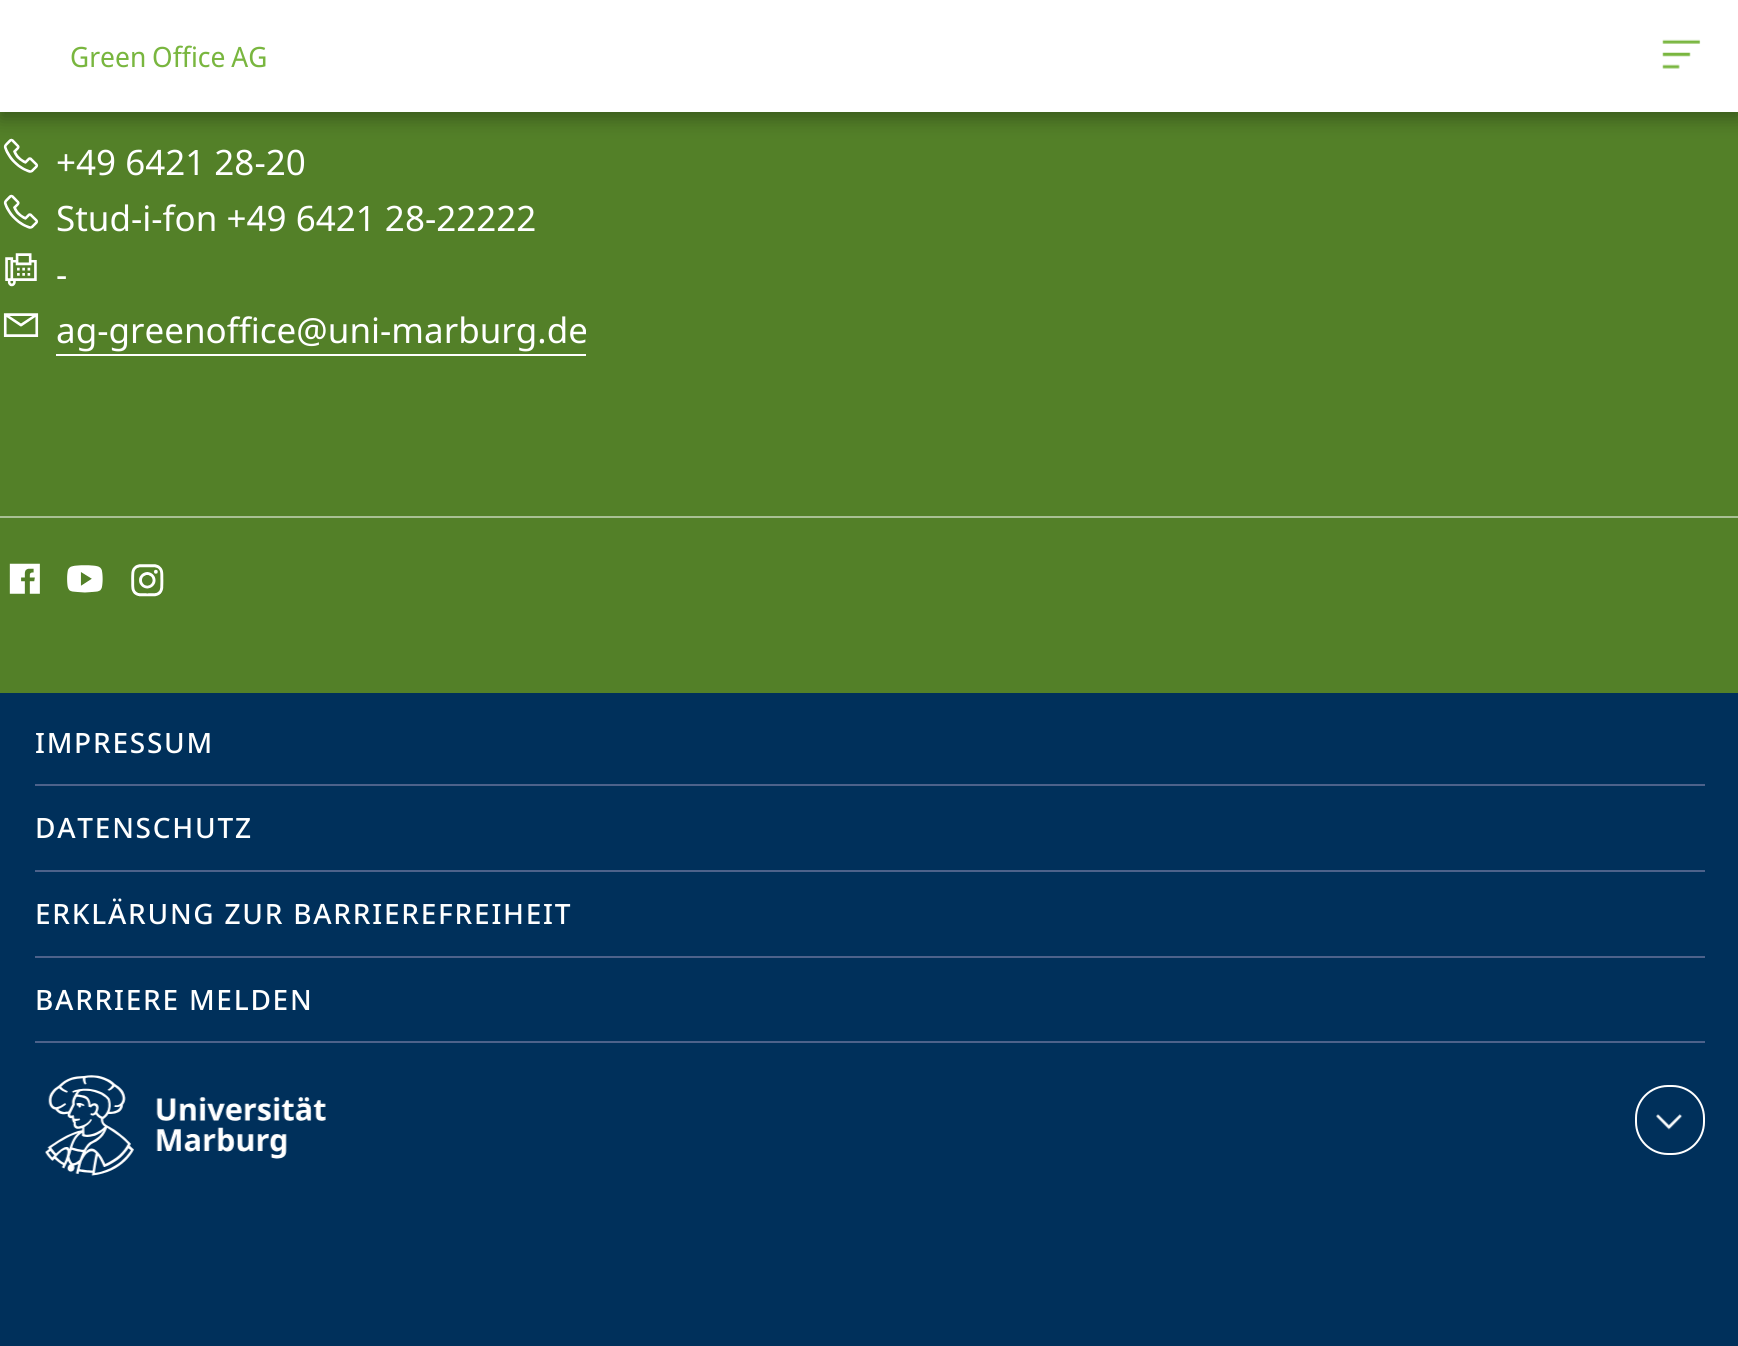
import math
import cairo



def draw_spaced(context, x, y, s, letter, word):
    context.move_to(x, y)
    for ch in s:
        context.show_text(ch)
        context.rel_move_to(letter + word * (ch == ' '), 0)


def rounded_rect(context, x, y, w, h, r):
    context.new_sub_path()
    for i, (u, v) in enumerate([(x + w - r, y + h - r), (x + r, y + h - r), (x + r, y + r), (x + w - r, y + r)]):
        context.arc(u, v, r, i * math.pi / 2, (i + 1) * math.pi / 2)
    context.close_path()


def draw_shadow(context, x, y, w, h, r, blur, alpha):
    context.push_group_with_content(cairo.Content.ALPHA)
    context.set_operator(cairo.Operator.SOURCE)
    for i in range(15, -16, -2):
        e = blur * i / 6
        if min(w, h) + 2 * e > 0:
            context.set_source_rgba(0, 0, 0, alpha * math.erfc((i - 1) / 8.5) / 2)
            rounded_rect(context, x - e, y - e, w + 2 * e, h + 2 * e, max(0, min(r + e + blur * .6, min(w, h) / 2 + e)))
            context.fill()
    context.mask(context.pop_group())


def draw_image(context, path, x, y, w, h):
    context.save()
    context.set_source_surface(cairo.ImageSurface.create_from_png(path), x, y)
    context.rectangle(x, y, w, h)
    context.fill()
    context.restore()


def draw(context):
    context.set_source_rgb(0, 48 / 255, 91 / 255)
    context.paint()
    context.set_source_rgb(83 / 255, 128 / 255, 40 / 255)
    context.rectangle(0, 112, 1738, 581)
    context.fill()
    draw_image(context, "images/2.png", 3, 138, 36, 35)
    context.set_source_rgb(0, 0, 0)
    draw_shadow(context, 0, 7, 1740, 112, 0, 9, 0.3)
    context.set_source_rgb(1, 1, 1)
    context.rectangle(0, 0, 1738, 112)
    context.fill()
    draw_image(context, "images/1.png", 1662, 39, 39, 30)
    draw_image(context, "images/2.png", 3, 194, 36, 35)
    draw_image(context, "images/3.png", 5, 253, 32, 34)
    draw_image(context, "images/4.png", 3, 313, 36, 24)
    context.rectangle(56, 354, 530, 2)
    context.fill()
    context.set_source_rgb(169 / 255, 192 / 255, 148 / 255)
    context.rectangle(0, 516, 1738, 2)
    context.fill()
    draw_image(context, "images/5.png", 9, 563, 31, 31)
    draw_image(context, "images/6.png", 67, 565, 36, 28)
    draw_image(context, "images/7.png", 131, 564, 33, 33)
    context.set_source_rgb(77 / 255, 98 / 255, 139 / 255)
    context.rectangle(35, 784, 1670, 2)
    context.fill()
    context.rectangle(35, 870, 1670, 2)
    context.fill()
    context.rectangle(35, 956, 1670, 2)
    context.fill()
    context.rectangle(35, 1041, 1670, 2)
    context.fill()
    draw_image(context, "images/8.png", 45, 1075, 281, 101)
    rounded_rect(context, 1636, 1086, 68, 68, 32)
    context.set_source_rgb(1, 1, 1)
    context.stroke()
    draw_image(context, "images/9.png", 1656, 1114, 27, 16)
    context.select_font_face("Noto Sans Display")
    context.set_font_size(28)
    context.set_source_rgb(121 / 255, 182 / 255, 63 / 255)
    draw_spaced(context, 70, 67, "Green Office AG", 0, -1)
    context.select_font_face("Noto Sans")
    context.set_font_size(35)
    context.set_source_rgb(1, 1, 1)
    context.move_to(56, 175)
    context.show_text("+49 6421 28-20")
    context.move_to(56, 231)
    context.show_text("Stud-i-fon +49 6421 28-22222")
    context.move_to(56, 287)
    context.show_text("-")
    context.move_to(56, 343)
    context.show_text("ag-greenoffice@uni-marburg.de")
    context.select_font_face("Noto Sans Medium")
    context.set_font_size(28)
    draw_spaced(context, 35, 753, "IMPRESSUM", 1.75, 0)
    draw_spaced(context, 35, 838, "DATENSCHUTZ", 1.75, 0)
    draw_spaced(context, 35, 924, "ERKLÄRUNG ZUR BARRIEREFREIHEIT", 1.75, 0)
    draw_spaced(context, 35, 1010, "BARRIERE MELDEN", 1.75, 0)


surface = cairo.ImageSurface(cairo.Format.RGB24, 1738, 1346)
context = cairo.Context(surface)
options = cairo.FontOptions()
options.set_hint_metrics(cairo.HintMetrics.OFF)
options.set_hint_style(cairo.HintStyle.NONE)
context.set_font_options(options)
context.set_miter_limit(4)
draw(context)
surface.write_to_png("out.png")
